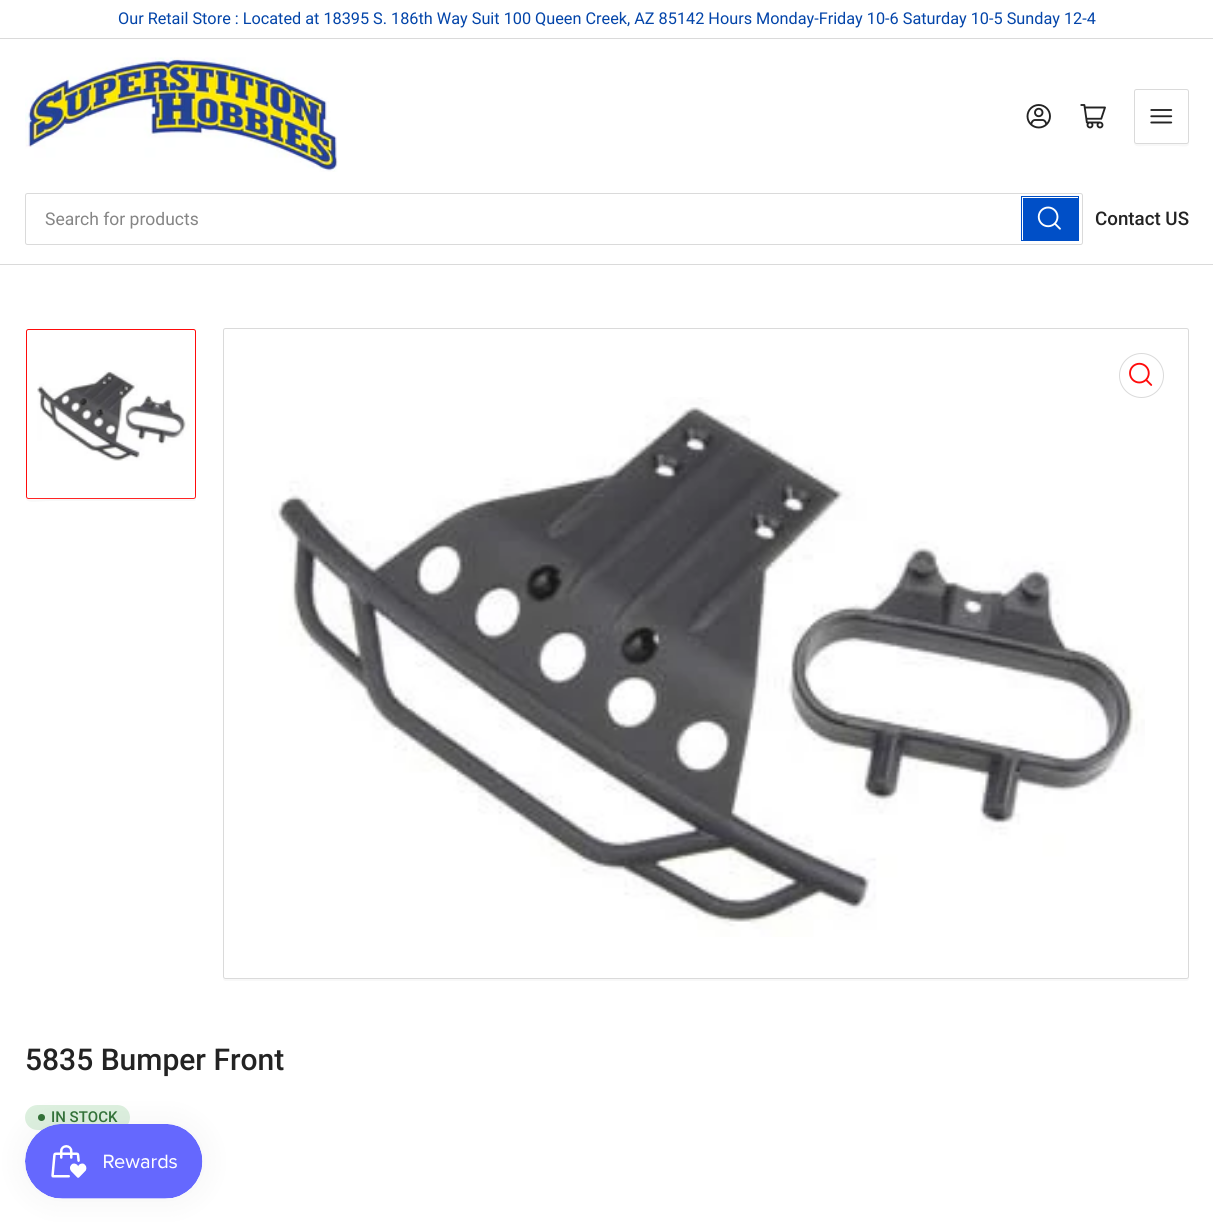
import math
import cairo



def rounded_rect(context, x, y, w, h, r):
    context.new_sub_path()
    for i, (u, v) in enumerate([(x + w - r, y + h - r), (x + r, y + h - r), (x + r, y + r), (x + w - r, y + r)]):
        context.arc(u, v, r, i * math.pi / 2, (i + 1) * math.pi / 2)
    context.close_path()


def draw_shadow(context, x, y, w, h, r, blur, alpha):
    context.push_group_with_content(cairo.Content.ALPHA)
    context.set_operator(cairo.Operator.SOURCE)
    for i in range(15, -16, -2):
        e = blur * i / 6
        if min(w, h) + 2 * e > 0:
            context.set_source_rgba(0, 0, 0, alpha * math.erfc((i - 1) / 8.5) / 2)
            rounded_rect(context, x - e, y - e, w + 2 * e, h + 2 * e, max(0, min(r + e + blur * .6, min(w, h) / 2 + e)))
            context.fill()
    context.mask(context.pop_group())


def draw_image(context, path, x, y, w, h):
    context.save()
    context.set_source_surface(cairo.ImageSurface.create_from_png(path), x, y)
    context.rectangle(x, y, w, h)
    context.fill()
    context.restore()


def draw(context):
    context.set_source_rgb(1, 1, 1)
    context.paint()
    context.set_source_rgb(218 / 255, 218 / 255, 218 / 255)
    context.rectangle(0, 38, 1213, 1)
    context.fill()
    context.rectangle(0, 264, 1213, 1)
    context.fill()
    draw_image(context, "images/1.png", 25, 57, 313, 115)
    draw_image(context, "images/2.png", 1026, 104, 25, 25)
    draw_image(context, "images/3.png", 1080, 104, 26, 25)
    context.set_source_rgb(248 / 255, 248 / 255, 248 / 255)
    context.new_path()
    context.move_to(1134, 142)
    context.curve_to(1134, 148, 1140, 146, 1145, 146)
    context.line_to(1178, 146)
    context.curve_to(1179, 146, 1189, 148, 1189, 144)
    context.line_to(1189, 92)
    context.line_to(1189, 141)
    context.curve_to(1189, 143, 1188, 144, 1186, 144)
    context.line_to(1136, 144)
    context.curve_to(1135, 144, 1134, 143, 1134, 142)
    context.close_path()
    context.fill()
    rounded_rect(context, 1134.5, 89.5, 54, 54, 2)
    context.set_source_rgb(218 / 255, 218 / 255, 218 / 255)
    context.set_line_width(1)
    context.stroke()
    draw_image(context, "images/4.png", 1150, 109, 23, 15)
    rounded_rect(context, 25.5, 193.5, 1057, 51, 2)
    context.stroke()
    context.rectangle(1021.5, 196.5, 57, 44)
    context.set_source_rgb(0, 79 / 255, 199 / 255)
    context.stroke()
    context.rectangle(1023, 198, 55, 42)
    context.fill()
    draw_image(context, "images/5.png", 1037, 206, 24, 24)
    context.set_source_rgb(248 / 255, 248 / 255, 248 / 255)
    context.new_path()
    context.move_to(26, 332)
    context.line_to(26, 471)
    context.curve_to(26, 509, 18, 501, 56, 501)
    context.line_to(194, 501)
    context.curve_to(196, 501, 196, 499, 196, 497)
    context.line_to(194, 499)
    context.line_to(56, 499)
    context.curve_to(18, 499, 26, 507, 26, 469)
    context.close_path()
    context.fill()
    rounded_rect(context, 26.5, 329.5, 169, 169, 2)
    context.set_source_rgb(1, 11 / 255, 11 / 255)
    context.stroke()
    draw_image(context, "images/6.png", 37, 370, 153, 91)
    gradient = cairo.LinearGradient(111, 538, 111, 494)
    gradient.add_color_stop_rgba(0, 1, 1, 1, 1)
    gradient.add_color_stop_rgba(1, 1, 1, 1, 0)
    context.set_source(gradient)
    context.rectangle(26, 495, 170, 4)
    context.fill()
    context.set_source_rgb(248 / 255, 248 / 255, 248 / 255)
    context.new_path()
    context.move_to(223, 978)
    context.curve_to(223, 980, 224, 981, 226, 981)
    context.line_to(1186, 981)
    context.curve_to(1188, 981, 1189, 980, 1189, 978)
    context.line_to(1189, 331)
    context.line_to(1189, 976)
    context.curve_to(1189, 978, 1188, 979, 1186, 979)
    context.line_to(225, 979)
    context.curve_to(224, 979, 223, 978, 223, 978)
    context.close_path()
    context.fill()
    rounded_rect(context, 223.5, 328.5, 965, 650, 2)
    context.set_source_rgb(218 / 255, 218 / 255, 218 / 255)
    context.stroke()
    draw_image(context, "images/8.png", 271, 397, 874, 540)
    context.arc(1141.5, 375.5, 22, 0, 2 * math.pi)
    context.stroke()
    draw_image(context, "images/7.png", 1129, 362, 24, 24)
    context.set_source_rgb(221 / 255, 240 / 255, 223 / 255)
    rounded_rect(context, 25, 1105, 105, 25, 12.5)
    context.fill()
    context.set_source_rgb(51 / 255, 114 / 255, 57 / 255)
    context.arc(41.5, 1117.5, 3.5, 0, 2 * math.pi)
    context.fill()
    context.set_source_rgb(0, 0, 0)
    draw_shadow(context, 25, 1124, 178, 75, 37.5, 15.5, 0.05)
    draw_image(context, "images/9.png", 25, 1124, 178, 75)
    context.select_font_face("Roboto")
    context.set_font_size(16.25)
    context.set_source_rgb(2 / 255, 68 / 255, 169 / 255)
    context.move_to(118, 24)
    context.show_text("Our Retail Store : Located at 18395 S. 186th Way Suit 100 Queen Creek, AZ 85142 Hours Monday-Friday 10-6 Saturday 10-5 Sunday 12-4")
    context.set_font_size(17.5)
    context.set_source_rgb(133 / 255, 133 / 255, 133 / 255)
    context.move_to(45, 225)
    context.show_text("Search for products")
    context.select_font_face("Roboto Medium")
    context.set_font_size(18.75)
    context.set_source_rgb(35 / 255, 35 / 255, 35 / 255)
    context.move_to(1095, 225)
    context.show_text("Contact US")
    context.set_font_size(30)
    context.move_to(25, 1070)
    context.show_text("5835 Bumper Front")
    context.set_font_size(15)
    context.set_source_rgb(51 / 255, 114 / 255, 57 / 255)
    context.move_to(51, 1122)
    context.show_text("IN STOCK")


surface = cairo.ImageSurface(cairo.Format.RGB24, 1213, 1223)
context = cairo.Context(surface)
options = cairo.FontOptions()
options.set_hint_metrics(cairo.HintMetrics.OFF)
options.set_hint_style(cairo.HintStyle.NONE)
context.set_font_options(options)
context.set_miter_limit(4)
draw(context)
surface.write_to_png("out.png")
